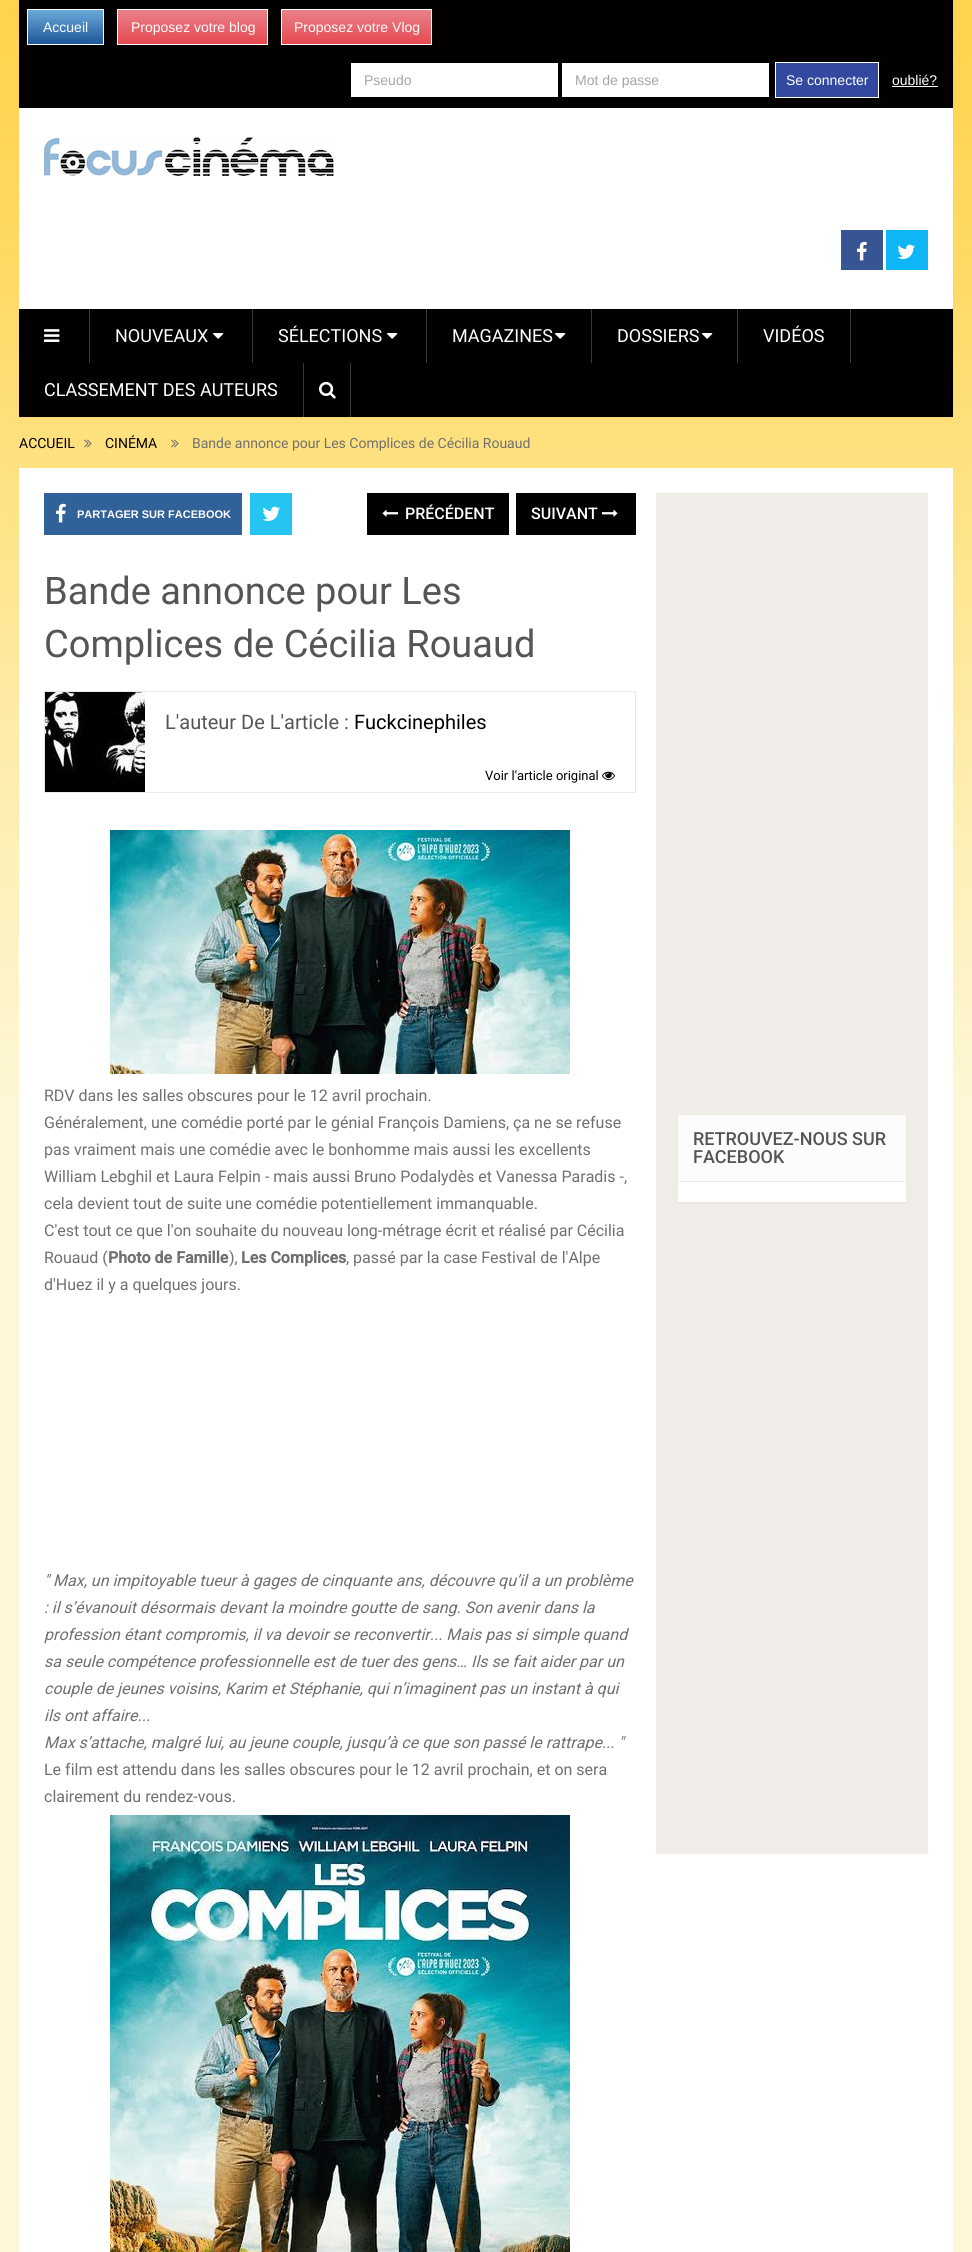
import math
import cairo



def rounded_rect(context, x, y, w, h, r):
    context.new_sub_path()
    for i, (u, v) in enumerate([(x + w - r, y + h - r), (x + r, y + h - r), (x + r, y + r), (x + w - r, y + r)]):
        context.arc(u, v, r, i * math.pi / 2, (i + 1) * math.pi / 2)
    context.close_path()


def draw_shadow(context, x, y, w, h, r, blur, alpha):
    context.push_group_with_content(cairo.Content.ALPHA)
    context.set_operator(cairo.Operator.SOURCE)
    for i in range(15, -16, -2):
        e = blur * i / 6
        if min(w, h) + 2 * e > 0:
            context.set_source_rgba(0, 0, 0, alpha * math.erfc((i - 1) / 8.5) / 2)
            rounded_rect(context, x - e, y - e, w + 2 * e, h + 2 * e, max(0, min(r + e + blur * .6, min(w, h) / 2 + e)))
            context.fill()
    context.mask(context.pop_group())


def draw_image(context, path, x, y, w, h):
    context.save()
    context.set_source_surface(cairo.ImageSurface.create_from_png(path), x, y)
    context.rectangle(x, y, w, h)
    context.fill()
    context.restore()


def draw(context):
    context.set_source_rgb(253 / 255, 247 / 255, 213 / 255)
    context.paint()
    draw_image(context, "images/1.png", 0, 0, 972, 1092)
    context.set_source_rgb(0, 0, 0)
    draw_shadow(context, 19, 1, 934, 417, 0, 1, 0.05)
    context.set_source_rgb(1, 1, 1)
    context.rectangle(19, 108, 934, 201)
    context.fill()
    context.set_source_rgb(3 / 255, 1 / 255, 0)
    context.rectangle(19, 0, 934, 108)
    context.fill()
    gradient = cairo.LinearGradient(66, 10, 66, 44)
    gradient.add_color_stop_rgba(0, 108 / 255, 170 / 255, 219 / 255, 1)
    gradient.add_color_stop_rgba(1, 30 / 255, 87 / 255, 153 / 255, 1)
    gradient.add_color_stop_rgba(1, 162 / 255, 189 / 255, 216 / 255, 1)
    context.set_source(gradient)
    context.rectangle(28, 10, 75, 34)
    context.fill()
    context.rectangle(27.5, 9.5, 76, 35)
    context.set_source_rgb(1, 1, 1)
    context.set_line_width(1)
    context.stroke()
    gradient = cairo.LinearGradient(193, 10, 193, 44)
    gradient.add_color_stop_rgba(0, 232 / 255, 129 / 255, 138 / 255, 1)
    gradient.add_color_stop_rgba(1, 231 / 255, 73 / 255, 80 / 255, 1)
    context.set_source(gradient)
    context.rectangle(118, 10, 149, 34)
    context.fill()
    context.rectangle(117.5, 9.5, 150, 35)
    context.set_source_rgb(1, 1, 1)
    context.stroke()
    gradient = cairo.LinearGradient(357, 10, 357, 44)
    gradient.add_color_stop_rgba(0, 232 / 255, 129 / 255, 138 / 255, 1)
    gradient.add_color_stop_rgba(1, 231 / 255, 73 / 255, 80 / 255, 1)
    context.set_source(gradient)
    context.rectangle(282, 10, 149, 34)
    context.fill()
    context.rectangle(281.5, 9.5, 150, 35)
    context.set_source_rgb(1, 1, 1)
    context.stroke()
    context.rectangle(351, 63, 207, 34)
    context.fill()
    context.rectangle(562, 63, 207, 34)
    context.fill()
    context.set_source_rgb(51 / 255, 72 / 255, 159 / 255)
    context.rectangle(775.5, 62.5, 103, 35)
    context.fill_preserve()
    context.set_source_rgb(1, 1, 1)
    context.stroke()
    context.rectangle(892, 86, 46, 1)
    context.fill()
    draw_image(context, "images/2.png", 44, 137, 290, 39)
    context.set_source_rgb(55 / 255, 85 / 255, 147 / 255)
    context.rectangle(841, 230, 42, 40)
    context.fill()
    draw_image(context, "images/3.png", 857, 241, 10, 20)
    context.set_source_rgb(14 / 255, 182 / 255, 246 / 255)
    context.rectangle(886, 230, 42, 40)
    context.fill()
    draw_image(context, "images/4.png", 897, 244, 18, 15)
    context.set_source_rgb(3 / 255, 1 / 255, 0)
    context.rectangle(19, 309, 934, 108)
    context.fill()
    context.set_source_rgb(58 / 255, 57 / 255, 56 / 255)
    context.rectangle(89, 309, 1, 54)
    context.fill()
    context.set_source_rgb(0, 0, 0)
    context.rectangle(19, 309, 70, 54)
    context.fill()
    draw_image(context, "images/5.png", 44, 329, 16, 13)
    context.set_source_rgb(58 / 255, 57 / 255, 56 / 255)
    context.rectangle(252, 309, 1, 54)
    context.fill()
    context.set_source_rgb(0, 0, 0)
    context.rectangle(90, 309, 162, 54)
    context.fill()
    draw_image(context, "images/6.png", 213, 333, 11, 6)
    context.set_source_rgb(58 / 255, 57 / 255, 56 / 255)
    context.rectangle(426, 309, 1, 54)
    context.fill()
    draw_image(context, "images/7.png", 387, 333, 11, 6)
    context.rectangle(591, 309, 1, 54)
    context.fill()
    draw_image(context, "images/7.png", 555, 333, 11, 6)
    context.rectangle(737, 309, 1, 54)
    context.fill()
    draw_image(context, "images/7.png", 702, 333, 11, 6)
    context.rectangle(850, 309, 1, 54)
    context.fill()
    context.rectangle(303, 363, 1, 54)
    context.fill()
    context.rectangle(350, 363, 1, 54)
    context.fill()
    draw_image(context, "images/8.png", 319, 381, 17, 18)
    draw_image(context, "images/9.png", 84, 439, 8, 9)
    draw_image(context, "images/9.png", 171, 439, 8, 9)
    context.set_source_rgb(1, 1, 1)
    context.rectangle(19, 468, 934, 1784)
    context.fill()
    context.set_source_rgb(48 / 255, 97 / 255, 153 / 255)
    context.rectangle(44, 493, 198, 42)
    context.fill()
    draw_image(context, "images/10.png", 56, 503, 10, 20)
    context.set_source_rgb(38 / 255, 196 / 255, 241 / 255)
    context.rectangle(250, 493, 42, 42)
    context.fill()
    draw_image(context, "images/11.png", 262, 506, 18, 15)
    context.set_source_rgb(3 / 255, 1 / 255, 0)
    context.rectangle(367, 493, 142, 42)
    context.fill()
    draw_image(context, "images/12.png", 382, 509, 16, 8)
    context.rectangle(516, 493, 120, 42)
    context.fill()
    draw_image(context, "images/13.png", 602, 509, 16, 8)
    context.rectangle(44.5, 691.5, 591, 101)
    context.set_source_rgb(233 / 255, 233 / 255, 233 / 255)
    context.stroke()
    context.set_source_rgb(3 / 255, 1 / 255, 0)
    context.rectangle(45, 780, 100, 12)
    context.fill()
    draw_image(context, "images/14.png", 45, 692, 100, 88)
    draw_image(context, "images/15.png", 602, 771, 13, 9)
    draw_image(context, "images/16.png", 110, 830, 460, 244)
    draw_image(context, "images/17.png", 110, 1815, 460, 437)
    context.set_source_rgb(240 / 255, 237 / 255, 233 / 255)
    context.rectangle(656, 493, 272, 1361)
    context.fill()
    context.set_source_rgb(0, 0, 0)
    draw_shadow(context, 678, 1116, 228, 87, 0, 1, 0.05)
    context.set_source_rgb(1, 1, 1)
    context.rectangle(678, 1182, 228, 20)
    context.fill()
    context.set_source_rgb(252 / 255, 252 / 255, 252 / 255)
    context.rectangle(678, 1115, 228, 66)
    context.fill()
    context.set_source_rgb(233 / 255, 233 / 255, 233 / 255)
    context.rectangle(678, 1181, 228, 1)
    context.fill()
    context.select_font_face("Liberation Sans")
    context.set_font_size(14)
    context.set_source_rgb(1, 1, 1)
    context.move_to(43, 32)
    context.show_text("Accueil")
    context.move_to(131, 32)
    context.show_text("Proposez votre blog")
    context.move_to(294, 32)
    context.show_text("Proposez votre Vlog")
    context.set_source_rgb(164 / 255, 164 / 255, 164 / 255)
    context.move_to(364, 85)
    context.show_text("Pseudo")
    context.move_to(575, 85)
    context.show_text("Mot de passe")
    context.set_source_rgb(1, 1, 1)
    context.move_to(786, 85)
    context.show_text("Se connecter")
    context.move_to(892, 85)
    context.show_text("oublié?")
    context.select_font_face("Roboto")
    context.set_font_size(18)
    context.move_to(115, 342)
    context.show_text("NOUVEAUX")
    context.move_to(278, 342)
    context.show_text("SÉLECTIONS")
    context.move_to(452, 342)
    context.show_text("MAGAZINES")
    context.move_to(617, 342)
    context.show_text("DOSSIERS")
    context.move_to(763, 342)
    context.show_text("VIDÉOS")
    context.move_to(44, 396)
    context.show_text("CLASSEMENT DES AUTEURS")
    context.set_font_size(14)
    context.set_source_rgb(3 / 255, 1 / 255, 0)
    context.move_to(19, 448)
    context.show_text("ACCUEIL")
    context.move_to(105, 448)
    context.show_text("CINÉMA")
    context.set_source_rgb(112 / 255, 112 / 255, 112 / 255)
    context.move_to(192, 448)
    context.show_text("Bande annonce pour Les Complices de Cécilia Rouaud")
    context.select_font_face("Liberation Sans", cairo.FontSlant.NORMAL, cairo.FontWeight.BOLD)
    context.set_font_size(11)
    context.set_source_rgb(1, 1, 1)
    context.move_to(77, 518)
    context.show_text("PARTAGER SUR FACEBOOK")
    context.select_font_face("Roboto Medium")
    context.set_font_size(16)
    context.move_to(405, 519)
    context.show_text("PRÉCÉDENT")
    context.move_to(531, 519)
    context.show_text("SUIVANT")
    context.select_font_face("Roboto")
    context.set_font_size(38)
    context.set_source_rgb(85 / 255, 85 / 255, 85 / 255)
    context.move_to(44, 604)
    context.show_text("Bande annonce pour Les")
    context.move_to(44, 657)
    context.show_text("Complices de Cécilia Rouaud")
    context.set_font_size(20)
    context.move_to(165, 729)
    context.show_text("L'auteur De L'article :")
    context.set_source_rgb(3 / 255, 1 / 255, 0)
    context.move_to(354, 729)
    context.show_text("Fuckcinephiles")
    context.set_font_size(13)
    context.move_to(485, 780)
    context.show_text("Voir l'article original")
    context.set_font_size(16)
    context.set_source_rgb(112 / 255, 112 / 255, 112 / 255)
    context.move_to(44, 1101)
    context.show_text("RDV dans les salles obscures pour le 12 avril prochain.")
    context.move_to(44, 1128)
    context.show_text("Généralement, une comédie porté par le génial François Damiens, ça ne se refuse")
    context.move_to(44, 1155)
    context.show_text("pas vraiment mais une comédie avec le bonhomme mais aussi les excellents")
    context.move_to(44, 1182)
    context.show_text("William Lebghil et Laura Felpin - mais aussi Bruno Podalydès et Vanessa Paradis -,")
    context.move_to(44, 1209)
    context.show_text("cela devient tout de suite une comédie potentiellement immanquable.")
    context.move_to(44, 1236)
    context.show_text("C'est tout ce que l'on souhaite du nouveau long-métrage écrit et réalisé par Cécilia")
    context.move_to(44, 1263)
    context.show_text("Rouaud (")
    context.select_font_face("Roboto", cairo.FontSlant.NORMAL, cairo.FontWeight.BOLD)
    context.move_to(108, 1263)
    context.show_text("Photo de Famille")
    context.select_font_face("Roboto")
    context.move_to(229, 1263)
    context.show_text("),")
    context.select_font_face("Roboto", cairo.FontSlant.NORMAL, cairo.FontWeight.BOLD)
    context.move_to(241, 1263)
    context.show_text("Les Complices")
    context.select_font_face("Roboto")
    context.move_to(346, 1263)
    context.show_text(", passé par la case Festival de l'Alpe")
    context.move_to(44, 1290)
    context.show_text("d'Huez il y a quelques jours.")
    context.select_font_face("Roboto", cairo.FontSlant.ITALIC)
    context.move_to(44, 1586)
    context.show_text("\" Max, un impitoyable tueur à gages de cinquante ans, découvre qu’il a un problème")
    context.move_to(44, 1613)
    context.show_text(": il s’évanouit désormais devant la moindre goutte de sang. Son avenir dans la")
    context.move_to(44, 1640)
    context.show_text("profession étant compromis, il va devoir se reconvertir... Mais pas si simple quand")
    context.move_to(44, 1667)
    context.show_text("sa seule compétence professionnelle est de tuer des gens… Ils se fait aider par un")
    context.move_to(44, 1694)
    context.show_text("couple de jeunes voisins, Karim et Stéphanie, qui n’imaginent pas un instant à qui")
    context.move_to(44, 1721)
    context.show_text("ils ont affaire...")
    context.move_to(44, 1748)
    context.show_text("Max s’attache, malgré lui, au jeune couple, jusqu’à ce que son passé le rattrape... \"")
    context.select_font_face("Roboto")
    context.move_to(44, 1775)
    context.show_text("Le film est attendu dans les salles obscures pour le 12 avril prochain, et on sera")
    context.move_to(44, 1802)
    context.show_text("clairement du rendez-vous.")
    context.select_font_face("Roboto Medium")
    context.set_font_size(18)
    context.set_source_rgb(85 / 255, 85 / 255, 85 / 255)
    context.move_to(693, 1145)
    context.show_text("RETROUVEZ-NOUS SUR")
    context.move_to(693, 1163)
    context.show_text("FACEBOOK")


surface = cairo.ImageSurface(cairo.Format.RGB24, 972, 2252)
context = cairo.Context(surface)
options = cairo.FontOptions()
options.set_hint_metrics(cairo.HintMetrics.OFF)
options.set_hint_style(cairo.HintStyle.NONE)
context.set_font_options(options)
context.set_miter_limit(4)
draw(context)
surface.write_to_png("out.png")
